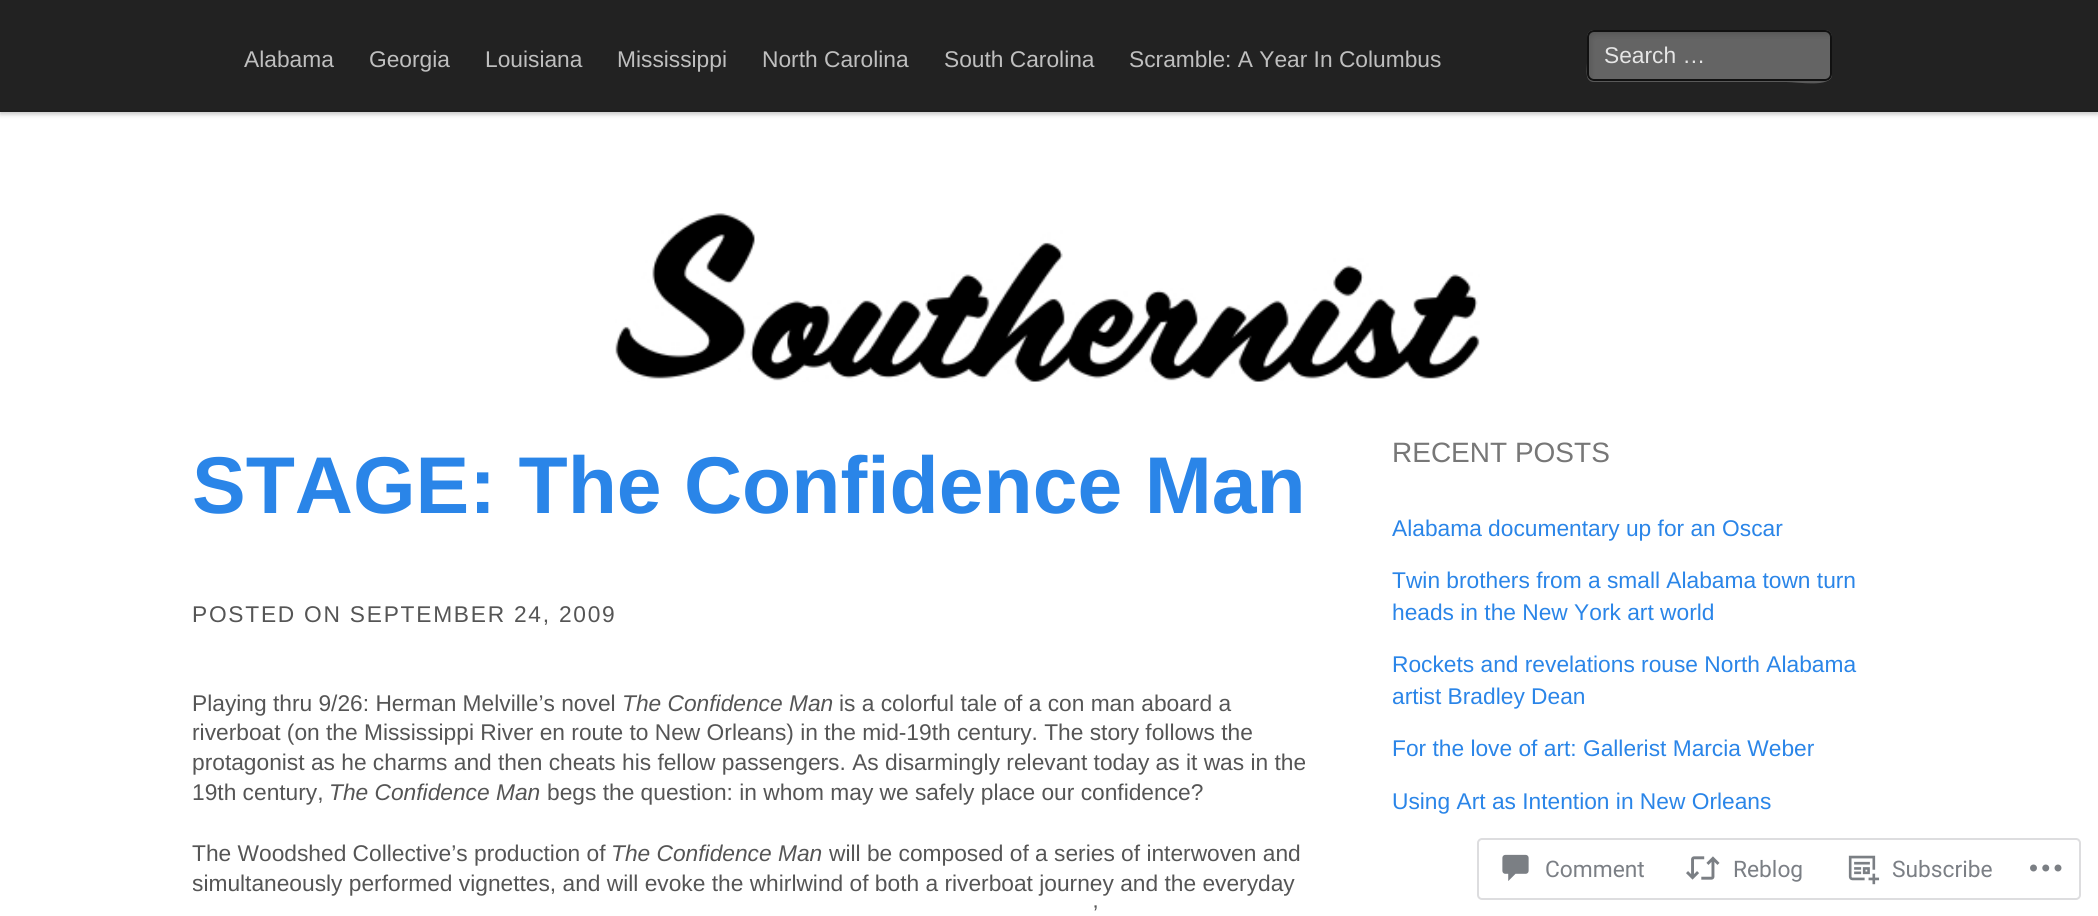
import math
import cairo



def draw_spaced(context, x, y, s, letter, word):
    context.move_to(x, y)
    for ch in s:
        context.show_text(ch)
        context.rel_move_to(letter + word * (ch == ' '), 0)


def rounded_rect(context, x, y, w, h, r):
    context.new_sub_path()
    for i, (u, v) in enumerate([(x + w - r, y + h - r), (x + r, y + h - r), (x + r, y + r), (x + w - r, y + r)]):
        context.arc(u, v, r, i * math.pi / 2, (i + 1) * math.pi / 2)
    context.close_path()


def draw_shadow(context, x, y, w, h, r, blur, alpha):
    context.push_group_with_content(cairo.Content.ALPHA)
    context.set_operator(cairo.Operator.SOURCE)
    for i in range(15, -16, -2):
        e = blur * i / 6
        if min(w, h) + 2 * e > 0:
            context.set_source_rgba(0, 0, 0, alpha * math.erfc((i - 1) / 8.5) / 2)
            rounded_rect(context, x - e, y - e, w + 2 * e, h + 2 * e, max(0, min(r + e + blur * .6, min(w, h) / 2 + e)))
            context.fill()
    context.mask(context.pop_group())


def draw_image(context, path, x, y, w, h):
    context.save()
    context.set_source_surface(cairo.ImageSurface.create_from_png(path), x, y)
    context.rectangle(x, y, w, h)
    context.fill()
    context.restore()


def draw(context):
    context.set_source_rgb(1, 1, 1)
    context.paint()
    context.set_source_rgb(0, 0, 0)
    draw_shadow(context, 0, 2, 2098, 112, 0, 2.5, 0.25)
    context.set_source_rgb(34 / 255, 34 / 255, 34 / 255)
    context.rectangle(0, 0, 2098, 110)
    context.fill()
    context.set_source_rgb(31 / 255, 31 / 255, 31 / 255)
    context.rectangle(0, 110, 2098, 2)
    context.fill()
    context.set_source_rgb(89 / 255, 89 / 255, 89 / 255)
    context.new_path()
    context.move_to(1587, 37)
    context.line_to(1587, 63)
    context.curve_to(1587, 69, 1584, 82, 1594, 82)
    context.line_to(1786, 82)
    context.curve_to(1798, 82, 1831, 88, 1832, 75)
    context.curve_to(1831, 78, 1828, 80, 1825, 80)
    context.line_to(1594, 80)
    context.curve_to(1590, 80, 1587, 77, 1587, 74)
    context.close_path()
    context.fill()
    context.set_source_rgba(1, 1, 1, 0.3)
    rounded_rect(context, 1587, 30, 245, 51, 7)
    context.fill()
    draw_image(context, "images/1.png", 1588, 31, 244, 48)
    rounded_rect(context, 1588, 31, 243, 49, 6)
    context.set_source_rgb(17 / 255, 17 / 255, 17 / 255)
    context.stroke()
    draw_image(context, "images/2.png", 615, 213, 865, 169)
    rounded_rect(context, 1478, 839, 602, 60, 4)
    context.set_source_rgb(221 / 255, 221 / 255, 223 / 255)
    context.stroke()
    draw_image(context, "images/3.png", 1502, 854, 27, 27)
    draw_image(context, "images/4.png", 1686, 856, 34, 24)
    draw_image(context, "images/5.png", 1848, 855, 32, 30)
    draw_image(context, "images/6.png", 2030, 864, 32, 8)
    context.select_font_face("Liberation Sans")
    context.set_font_size(22.75)
    context.set_source_rgb(191 / 255, 191 / 255, 191 / 255)
    context.move_to(244, 67)
    context.show_text("Alabama")
    context.move_to(369, 67)
    context.show_text("Georgia")
    context.move_to(485, 67)
    context.show_text("Louisiana")
    context.move_to(617, 67)
    context.show_text("Mississippi")
    context.move_to(762, 67)
    context.show_text("North Carolina")
    context.move_to(944, 67)
    context.show_text("South Carolina")
    context.move_to(1129, 67)
    context.show_text("Scramble: A Year In Columbus")
    context.set_source_rgb(230 / 255, 230 / 255, 230 / 255)
    context.move_to(1604, 63)
    context.show_text("Search …")
    context.select_font_face("Liberation Sans", cairo.FontSlant.NORMAL, cairo.FontWeight.BOLD)
    context.set_font_size(80.5)
    context.set_source_rgb(42 / 255, 133 / 255, 232 / 255)
    context.move_to(192, 513)
    context.show_text("STAGE: The Confidence Man")
    context.select_font_face("Liberation Sans")
    context.set_font_size(22.75)
    context.set_source_rgb(85 / 255, 85 / 255, 85 / 255)
    draw_spaced(context, 192, 622, "POSTED ON SEPTEMBER 24, 2009", 1.75, 0)
    context.move_to(192, 711)
    context.show_text("Playing thru 9/26: Herman Melville’s novel")
    context.select_font_face("Liberation Sans", cairo.FontSlant.ITALIC)
    context.move_to(622, 711)
    context.show_text("The Confidence Man")
    context.select_font_face("Liberation Sans")
    context.move_to(839, 711)
    context.show_text("is a colorful tale of a con man aboard a")
    context.move_to(192, 740)
    context.show_text("riverboat (on the Mississippi River en route to New Orleans) in the mid-19th century. The story follows the")
    context.move_to(192, 770)
    context.show_text("protagonist as he charms and then cheats his fellow passengers. As disarmingly relevant today as it was in the")
    context.move_to(192, 800)
    context.show_text("19th century,")
    context.select_font_face("Liberation Sans", cairo.FontSlant.ITALIC)
    context.move_to(329, 800)
    context.show_text("The Confidence Man")
    context.select_font_face("Liberation Sans")
    context.move_to(547, 800)
    context.show_text("begs the question: in whom may we safely place our confidence?")
    context.move_to(192, 861)
    context.show_text("The Woodshed Collective’s production of")
    context.select_font_face("Liberation Sans", cairo.FontSlant.ITALIC)
    context.move_to(611, 861)
    context.show_text("The Confidence Man")
    context.select_font_face("Liberation Sans")
    context.move_to(829, 861)
    context.show_text("will be composed of a series of interwoven and")
    context.save()
    context.rectangle(193, 436, 1114, 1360)
    context.clip()
    context.move_to(192, 891)
    context.show_text("simultaneously performed vignettes, and will evoke the whirlwind of both a riverboat journey and the everyday")
    context.restore()
    context.move_to(1093, 921)
    context.show_text("’")
    context.set_font_size(28)
    context.set_source_rgb(119 / 255, 119 / 255, 119 / 255)
    context.move_to(1392, 462)
    context.show_text("RECENT POSTS")
    context.set_font_size(22.75)
    context.set_source_rgb(42 / 255, 133 / 255, 232 / 255)
    context.move_to(1392, 536)
    context.show_text("Alabama documentary up for an Oscar")
    context.move_to(1392, 588)
    context.show_text("Twin brothers from a small Alabama town turn")
    context.move_to(1392, 620)
    context.show_text("heads in the New York art world")
    context.move_to(1392, 672)
    context.show_text("Rockets and revelations rouse North Alabama")
    context.move_to(1392, 704)
    context.show_text("artist Bradley Dean")
    context.move_to(1392, 756)
    context.show_text("For the love of art: Gallerist Marcia Weber")
    context.move_to(1392, 809)
    context.show_text("Using Art as Intention in New Orleans")
    context.select_font_face("Roboto")
    context.set_source_rgb(123 / 255, 127 / 255, 133 / 255)
    context.move_to(1545, 877)
    context.show_text("Comment")
    context.move_to(1733, 877)
    context.show_text("Reblog")
    context.move_to(1892, 877)
    context.show_text("Subscribe")


surface = cairo.ImageSurface(cairo.Format.RGB24, 2098, 916)
context = cairo.Context(surface)
options = cairo.FontOptions()
options.set_hint_metrics(cairo.HintMetrics.OFF)
options.set_hint_style(cairo.HintStyle.NONE)
context.set_font_options(options)
context.set_miter_limit(4)
draw(context)
surface.write_to_png("out.png")
